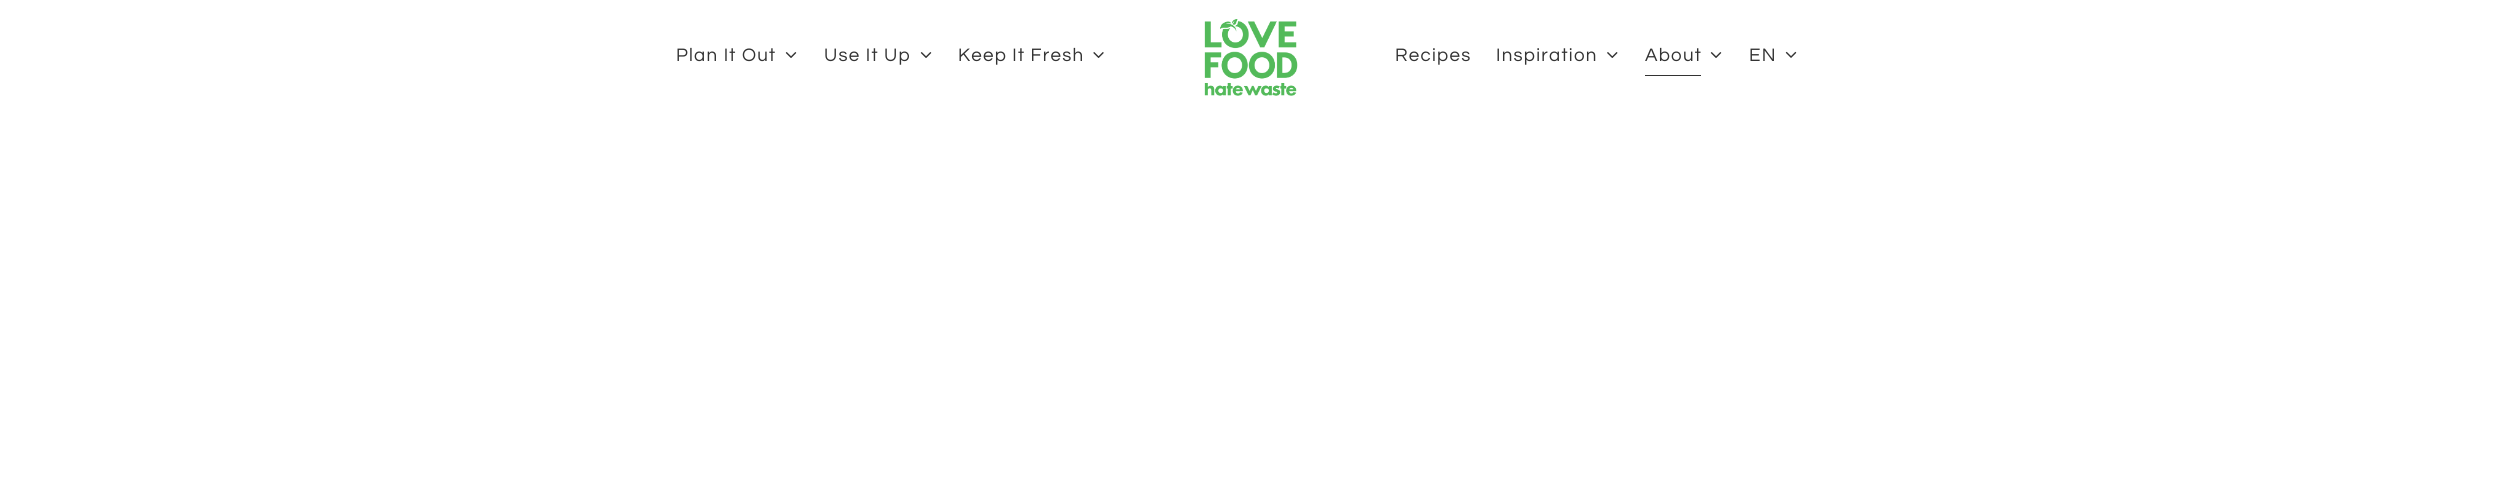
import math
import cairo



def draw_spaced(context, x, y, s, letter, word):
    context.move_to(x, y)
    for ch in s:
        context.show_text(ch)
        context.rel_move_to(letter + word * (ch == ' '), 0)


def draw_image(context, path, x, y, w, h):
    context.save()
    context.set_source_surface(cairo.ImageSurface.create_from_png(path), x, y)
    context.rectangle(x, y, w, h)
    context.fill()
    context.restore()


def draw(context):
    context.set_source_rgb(1, 1, 1)
    context.paint()
    draw_image(context, "images/1.png", 785, 52, 12, 6)
    draw_image(context, "images/1.png", 920, 52, 12, 6)
    draw_image(context, "images/2.png", 1093, 52, 11, 6)
    draw_image(context, "images/3.png", 1204, 19, 94, 77)
    draw_image(context, "images/4.png", 1607, 52, 11, 6)
    context.set_source_rgb(51 / 255, 51 / 255, 51 / 255)
    context.rectangle(1645, 75, 56, 1)
    context.fill()
    draw_image(context, "images/1.png", 1710, 52, 12, 6)
    draw_image(context, "images/5.png", 1785, 51, 12, 7)
    context.select_font_face("Questrial")
    context.set_font_size(18.75)
    draw_spaced(context, 676, 61, "Plan It Out", 1.25, 0)
    draw_spaced(context, 824, 61, "Use It Up", 1.25, 0)
    draw_spaced(context, 958, 61, "Keep It Fresh", 1.25, 0)
    draw_spaced(context, 1395, 61, "Recipes", 1.25, 0)
    draw_spaced(context, 1496, 61, "Inspiration", 1.25, 0)
    draw_spaced(context, 1645, 61, "About", 1.25, 0)
    draw_spaced(context, 1749, 61, "EN", 1.25, 0)


surface = cairo.ImageSurface(cairo.Format.RGB24, 2498, 504)
context = cairo.Context(surface)
options = cairo.FontOptions()
options.set_hint_metrics(cairo.HintMetrics.OFF)
options.set_hint_style(cairo.HintStyle.NONE)
context.set_font_options(options)
context.set_miter_limit(4)
draw(context)
surface.write_to_png("out.png")
